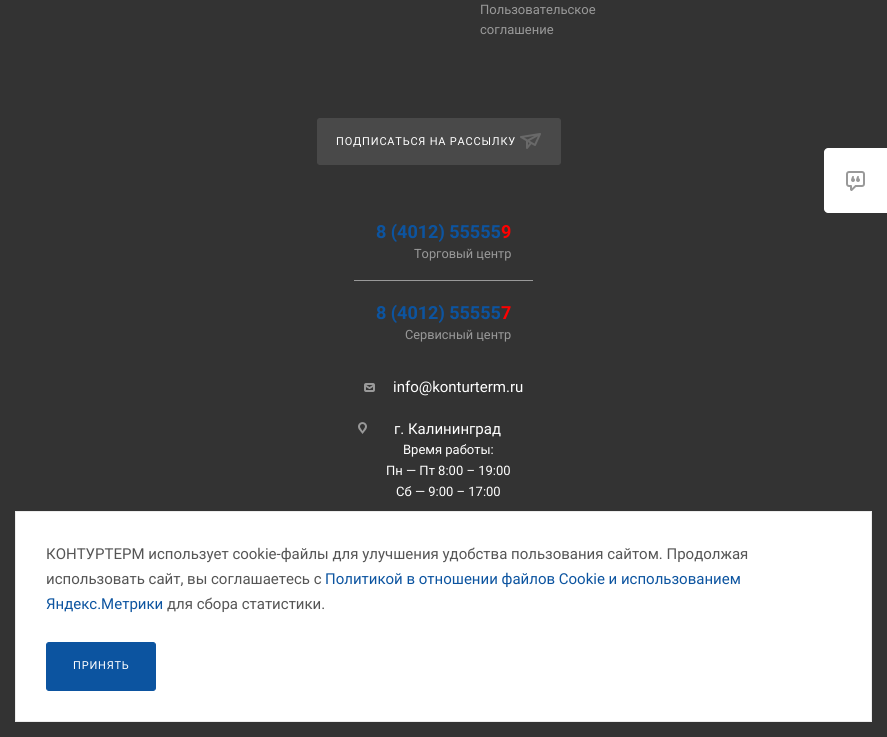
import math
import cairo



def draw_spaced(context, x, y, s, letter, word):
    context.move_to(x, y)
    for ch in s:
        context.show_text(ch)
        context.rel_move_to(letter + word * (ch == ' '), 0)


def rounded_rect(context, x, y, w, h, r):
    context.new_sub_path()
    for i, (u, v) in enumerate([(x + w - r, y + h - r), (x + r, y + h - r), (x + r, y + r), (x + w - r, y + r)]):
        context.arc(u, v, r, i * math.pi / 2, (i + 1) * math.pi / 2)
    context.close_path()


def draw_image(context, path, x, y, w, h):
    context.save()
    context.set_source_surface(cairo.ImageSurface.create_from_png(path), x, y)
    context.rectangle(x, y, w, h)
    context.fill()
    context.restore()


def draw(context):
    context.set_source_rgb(51 / 255, 51 / 255, 51 / 255)
    context.paint()
    context.set_source_rgb(73 / 255, 73 / 255, 73 / 255)
    rounded_rect(context, 317.5, 118.5, 243, 46, 2.5)
    context.fill_preserve()
    context.set_line_width(1)
    context.stroke()
    draw_image(context, "images/1.png", 520, 133, 21, 16)
    context.set_source_rgb(153 / 255, 153 / 255, 153 / 255)
    context.rectangle(354, 280, 179, 1)
    context.fill()
    draw_image(context, "images/2.png", 364, 383, 11, 9)
    draw_image(context, "images/3.png", 358, 422, 9, 12)
    context.set_source_rgb(1, 1, 1)
    context.new_path()
    context.move_to(828, 148)
    context.line_to(887, 148)
    context.line_to(887, 213)
    context.line_to(828, 213)
    context.curve_to(826, 213, 824, 211, 824, 209)
    context.line_to(824, 152)
    context.curve_to(824, 150, 826, 148, 828, 148)
    context.close_path()
    context.fill()
    draw_image(context, "images/4.png", 846, 171, 19, 20)
    context.rectangle(15.5, 511.5, 856, 210)
    context.fill_preserve()
    context.set_source_rgb(236 / 255, 236 / 255, 236 / 255)
    context.stroke()
    context.set_source_rgb(12 / 255, 84 / 255, 160 / 255)
    rounded_rect(context, 46.5, 642.5, 109, 48, 2.5)
    context.fill_preserve()
    context.stroke()
    context.select_font_face("Roboto")
    context.set_font_size(13)
    context.set_source_rgb(153 / 255, 153 / 255, 153 / 255)
    context.move_to(480, 14)
    context.show_text("Пользовательское")
    context.move_to(480, 34)
    context.show_text("соглашение")
    context.set_font_size(11)
    context.set_source_rgb(1, 1, 1)
    draw_spaced(context, 336, 145, "ПОДПИСАТЬСЯ НА РАССЫЛКУ", 0.8, 0)
    context.select_font_face("Roboto", cairo.FontSlant.NORMAL, cairo.FontWeight.BOLD)
    context.set_font_size(18)
    context.set_source_rgb(12 / 255, 84 / 255, 160 / 255)
    context.move_to(376, 238)
    context.show_text("8 (4012) 55555")
    context.set_source_rgb(1, 0, 0)
    context.move_to(501, 238)
    context.show_text("9")
    context.select_font_face("Roboto")
    context.set_font_size(12.75)
    context.set_source_rgb(153 / 255, 153 / 255, 153 / 255)
    context.move_to(414, 258)
    context.show_text("Торговый центр")
    context.select_font_face("Roboto", cairo.FontSlant.NORMAL, cairo.FontWeight.BOLD)
    context.set_font_size(18)
    context.set_source_rgb(12 / 255, 84 / 255, 160 / 255)
    context.move_to(376, 319)
    context.show_text("8 (4012) 55555")
    context.set_source_rgb(1, 0, 0)
    context.move_to(501, 319)
    context.show_text("7")
    context.select_font_face("Roboto")
    context.set_font_size(12.75)
    context.set_source_rgb(153 / 255, 153 / 255, 153 / 255)
    context.move_to(405, 339)
    context.show_text("Сервисный центр")
    context.set_font_size(15)
    context.set_source_rgb(1, 1, 1)
    context.move_to(393, 392)
    context.show_text("info@konturterm.ru")
    context.move_to(394, 434)
    context.show_text("г. Калининград")
    context.set_font_size(13)
    context.move_to(403, 454)
    context.show_text("Время работы:")
    context.move_to(386, 475)
    context.show_text("Пн — Пт 8:00 – 19:00")
    context.move_to(396, 496)
    context.show_text("Сб — 9:00 – 17:00")
    context.set_font_size(15)
    context.set_source_rgb(85 / 255, 85 / 255, 85 / 255)
    context.move_to(46, 559)
    context.show_text("КОНТУРТЕРМ использует cookie-файлы для улучшения удобства пользования сайтом. Продолжая")
    context.move_to(46, 584)
    context.show_text("использовать сайт, вы соглашаетесь с")
    context.set_source_rgb(12 / 255, 84 / 255, 160 / 255)
    context.move_to(325, 584)
    context.show_text("Политикой в отношении файлов Сookie и использованием")
    context.move_to(46, 609)
    context.show_text("Яндекс.Метрики")
    context.set_source_rgb(85 / 255, 85 / 255, 85 / 255)
    context.move_to(167, 609)
    context.show_text("для сбора статистики.")
    context.set_font_size(11)
    context.set_source_rgb(1, 1, 1)
    draw_spaced(context, 73, 669, "ПРИНЯТЬ", 0.8, 0)


surface = cairo.ImageSurface(cairo.Format.RGB24, 887, 737)
context = cairo.Context(surface)
options = cairo.FontOptions()
options.set_hint_metrics(cairo.HintMetrics.OFF)
options.set_hint_style(cairo.HintStyle.NONE)
context.set_font_options(options)
context.set_miter_limit(4)
draw(context)
surface.write_to_png("out.png")
